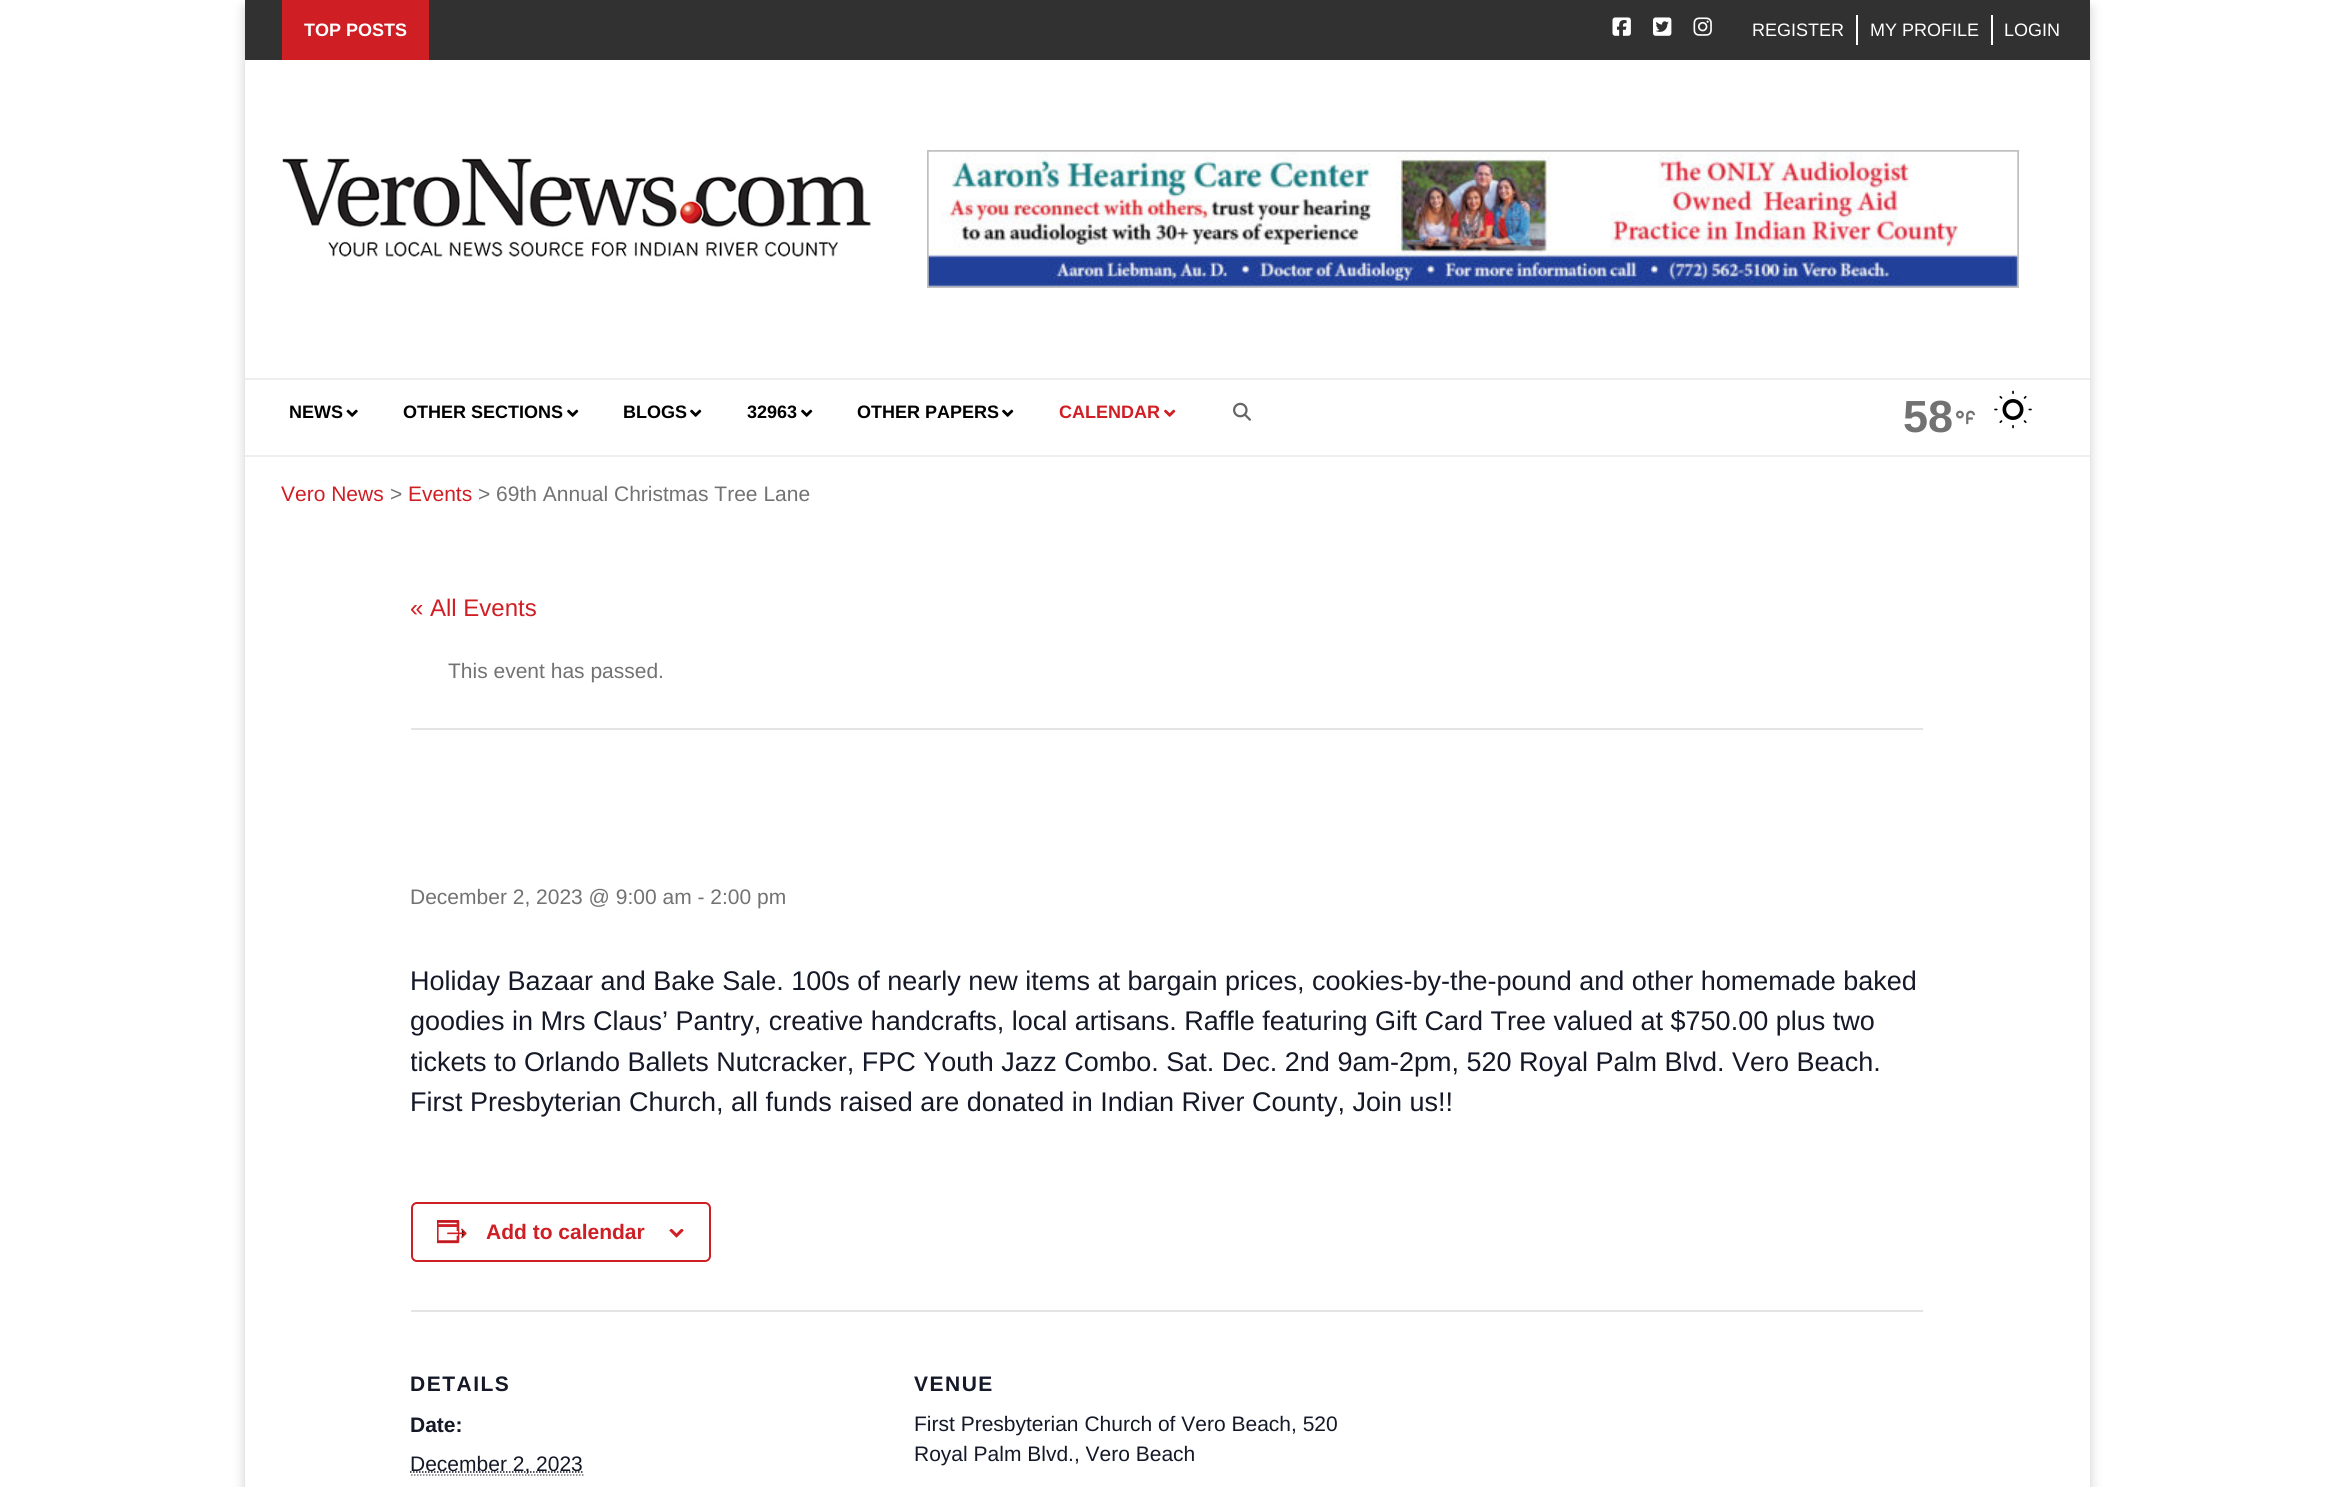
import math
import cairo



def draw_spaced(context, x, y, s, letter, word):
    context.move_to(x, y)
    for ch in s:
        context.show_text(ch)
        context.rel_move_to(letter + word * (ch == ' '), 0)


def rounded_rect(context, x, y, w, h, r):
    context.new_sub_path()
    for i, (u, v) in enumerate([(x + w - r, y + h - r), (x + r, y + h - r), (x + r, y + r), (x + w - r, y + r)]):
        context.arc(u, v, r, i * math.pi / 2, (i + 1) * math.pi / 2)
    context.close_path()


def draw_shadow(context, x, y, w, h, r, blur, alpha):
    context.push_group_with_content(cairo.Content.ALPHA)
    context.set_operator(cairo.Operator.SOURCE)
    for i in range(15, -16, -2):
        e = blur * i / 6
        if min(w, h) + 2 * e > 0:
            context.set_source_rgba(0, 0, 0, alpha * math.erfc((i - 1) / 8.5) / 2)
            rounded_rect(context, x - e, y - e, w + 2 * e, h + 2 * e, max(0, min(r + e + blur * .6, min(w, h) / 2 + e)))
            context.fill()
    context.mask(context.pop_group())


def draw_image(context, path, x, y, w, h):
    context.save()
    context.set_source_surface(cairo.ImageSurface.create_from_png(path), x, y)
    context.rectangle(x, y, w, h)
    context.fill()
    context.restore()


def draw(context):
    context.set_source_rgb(1, 1, 1)
    context.paint()
    context.set_source_rgb(0, 0, 0)
    draw_shadow(context, 245, 8, 1845, 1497, 0, 6, 0.2)
    context.set_source_rgb(1, 1, 1)
    context.rectangle(245, 60, 1845, 1427)
    context.fill()
    context.set_source_rgb(49 / 255, 49 / 255, 49 / 255)
    context.rectangle(245, 0, 1845, 60)
    context.fill()
    context.set_source_rgb(207 / 255, 30 / 255, 36 / 255)
    context.rectangle(282, 0, 147, 60)
    context.fill()
    draw_image(context, "images/1.png", 1612, 17, 19, 19)
    draw_image(context, "images/2.png", 1653, 17, 19, 19)
    draw_image(context, "images/3.png", 1693, 17, 19, 19)
    context.set_source_rgb(1, 1, 1)
    context.rectangle(1856, 15, 2, 30)
    context.fill()
    context.rectangle(1991, 15, 2, 30)
    context.fill()
    draw_image(context, "images/4.png", 282, 158, 589, 99)
    context.rectangle(928, 151, 1090, 136)
    context.set_source_rgb(192 / 255, 192 / 255, 192 / 255)
    context.stroke()
    draw_image(context, "images/5.png", 928, 151, 1090, 136)
    context.set_source_rgb(238 / 255, 238 / 255, 238 / 255)
    context.rectangle(245, 378, 1845, 2)
    context.fill()
    context.rectangle(245, 455, 1845, 2)
    context.fill()
    draw_image(context, "images/6.png", 346, 409, 12, 8)
    draw_image(context, "images/7.png", 567, 409, 12, 8)
    draw_image(context, "images/7.png", 690, 409, 12, 8)
    draw_image(context, "images/7.png", 801, 409, 12, 8)
    draw_image(context, "images/7.png", 1002, 409, 12, 8)
    draw_image(context, "images/8.png", 1164, 409, 12, 8)
    draw_image(context, "images/9.png", 1233, 402, 18, 19)
    draw_image(context, "images/10.png", 1956, 410, 20, 15)
    draw_image(context, "images/11.png", 1994, 390, 38, 39)
    context.set_source_rgb(228 / 255, 228 / 255, 228 / 255)
    context.rectangle(411, 728, 1512, 2)
    context.fill()
    rounded_rect(context, 412, 1203, 298, 58, 5)
    context.set_source_rgb(207 / 255, 30 / 255, 36 / 255)
    context.stroke()
    draw_image(context, "images/12.png", 437, 1220, 30, 24)
    draw_image(context, "images/13.png", 669, 1229, 15, 9)
    context.set_source_rgb(228 / 255, 228 / 255, 228 / 255)
    context.rectangle(411, 1310, 1512, 2)
    context.fill()
    context.new_path()
    context.move_to(411, 1475)
    context.line_to(583.5, 1475)
    context.set_source_rgb(119 / 255, 119 / 255, 119 / 255)
    context.set_line_width(1.5)
    context.set_dash([1.5, 1.5])
    context.stroke()
    context.new_path()
    context.move_to(410, 1472)
    context.line_to(583, 1472)
    context.set_source_rgb(20 / 255, 24 / 255, 39 / 255)
    context.stroke()
    context.select_font_face("Liberation Sans", cairo.FontSlant.NORMAL, cairo.FontWeight.BOLD)
    context.set_font_size(18)
    context.set_source_rgb(1, 1, 1)
    context.move_to(304, 36)
    context.show_text("TOP POSTS")
    context.select_font_face("Liberation Sans")
    context.move_to(1752, 36)
    context.show_text("REGISTER")
    context.move_to(1870, 36)
    context.show_text("MY PROFILE")
    context.move_to(2004, 36)
    context.show_text("LOGIN")
    context.select_font_face("Liberation Sans", cairo.FontSlant.NORMAL, cairo.FontWeight.BOLD)
    context.set_source_rgb(0, 0, 0)
    context.move_to(289, 418)
    context.show_text("NEWS")
    context.move_to(403, 418)
    context.show_text("OTHER SECTIONS")
    context.move_to(623, 418)
    context.show_text("BLOGS")
    context.move_to(747, 418)
    context.show_text("32963")
    context.move_to(857, 418)
    context.show_text("OTHER PAPERS")
    context.set_source_rgb(207 / 255, 30 / 255, 36 / 255)
    context.move_to(1059, 418)
    context.show_text("CALENDAR")
    context.set_font_size(45)
    context.set_source_rgb(114 / 255, 114 / 255, 114 / 255)
    context.move_to(1903, 432)
    context.show_text("58")
    context.select_font_face("Liberation Sans")
    context.set_font_size(21)
    context.set_source_rgb(207 / 255, 30 / 255, 36 / 255)
    context.move_to(281, 501)
    context.show_text("Vero News")
    context.set_source_rgb(114 / 255, 114 / 255, 114 / 255)
    context.move_to(390, 501)
    context.show_text(">")
    context.set_source_rgb(207 / 255, 30 / 255, 36 / 255)
    context.move_to(408, 501)
    context.show_text("Events")
    context.set_source_rgb(114 / 255, 114 / 255, 114 / 255)
    context.move_to(478, 501)
    context.show_text("> 69th Annual Christmas Tree Lane")
    context.set_font_size(24)
    context.set_source_rgb(207 / 255, 30 / 255, 36 / 255)
    context.move_to(410, 616)
    context.show_text("« All Events")
    context.set_font_size(21)
    context.set_source_rgb(114 / 255, 114 / 255, 114 / 255)
    context.move_to(448, 678)
    context.show_text("This event has passed.")
    context.move_to(410, 904)
    context.show_text("December 2, 2023 @ 9:00 am - 2:00 pm")
    context.set_font_size(27)
    context.set_source_rgb(20 / 255, 24 / 255, 39 / 255)
    context.move_to(410, 990)
    context.show_text("Holiday Bazaar and Bake Sale. 100s of nearly new items at bargain prices, cookies-by-the-pound and other homemade baked")
    context.move_to(410, 1030)
    context.show_text("goodies in Mrs Claus’ Pantry, creative handcrafts, local artisans. Raffle featuring Gift Card Tree valued at $750.00 plus two")
    context.save()
    context.rectangle(411, 962, 1512, 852)
    context.clip()
    context.move_to(410, 1071)
    context.show_text("tickets to Orlando Ballets Nutcracker, FPC Youth Jazz Combo. Sat. Dec. 2nd 9am-2pm, 520 Royal Palm Blvd. Vero Beach.")
    context.restore()
    context.move_to(410, 1111)
    context.show_text("First Presbyterian Church, all funds raised are donated in Indian River County, Join us!!")
    context.select_font_face("Liberation Sans", cairo.FontSlant.NORMAL, cairo.FontWeight.BOLD)
    context.set_font_size(21)
    context.set_source_rgb(207 / 255, 30 / 255, 36 / 255)
    context.move_to(486, 1239)
    context.show_text("Add to calendar")
    context.set_source_rgb(20 / 255, 24 / 255, 39 / 255)
    draw_spaced(context, 410, 1391, "DETAILS", 1.5, 0)
    context.move_to(410, 1432)
    context.show_text("Date:")
    context.select_font_face("Liberation Sans")
    context.move_to(410, 1471)
    context.show_text("December 2, 2023")
    context.select_font_face("Liberation Sans", cairo.FontSlant.NORMAL, cairo.FontWeight.BOLD)
    draw_spaced(context, 914, 1391, "VENUE", 1.5, 0)
    context.select_font_face("Liberation Sans")
    context.move_to(914, 1431)
    context.show_text("First Presbyterian Church of Vero Beach, 520")
    context.move_to(914, 1461)
    context.show_text("Royal Palm Blvd., Vero Beach")


surface = cairo.ImageSurface(cairo.Format.RGB24, 2332, 1487)
context = cairo.Context(surface)
options = cairo.FontOptions()
options.set_hint_metrics(cairo.HintMetrics.OFF)
options.set_hint_style(cairo.HintStyle.NONE)
context.set_font_options(options)
context.set_miter_limit(4)
draw(context)
surface.write_to_png("out.png")
